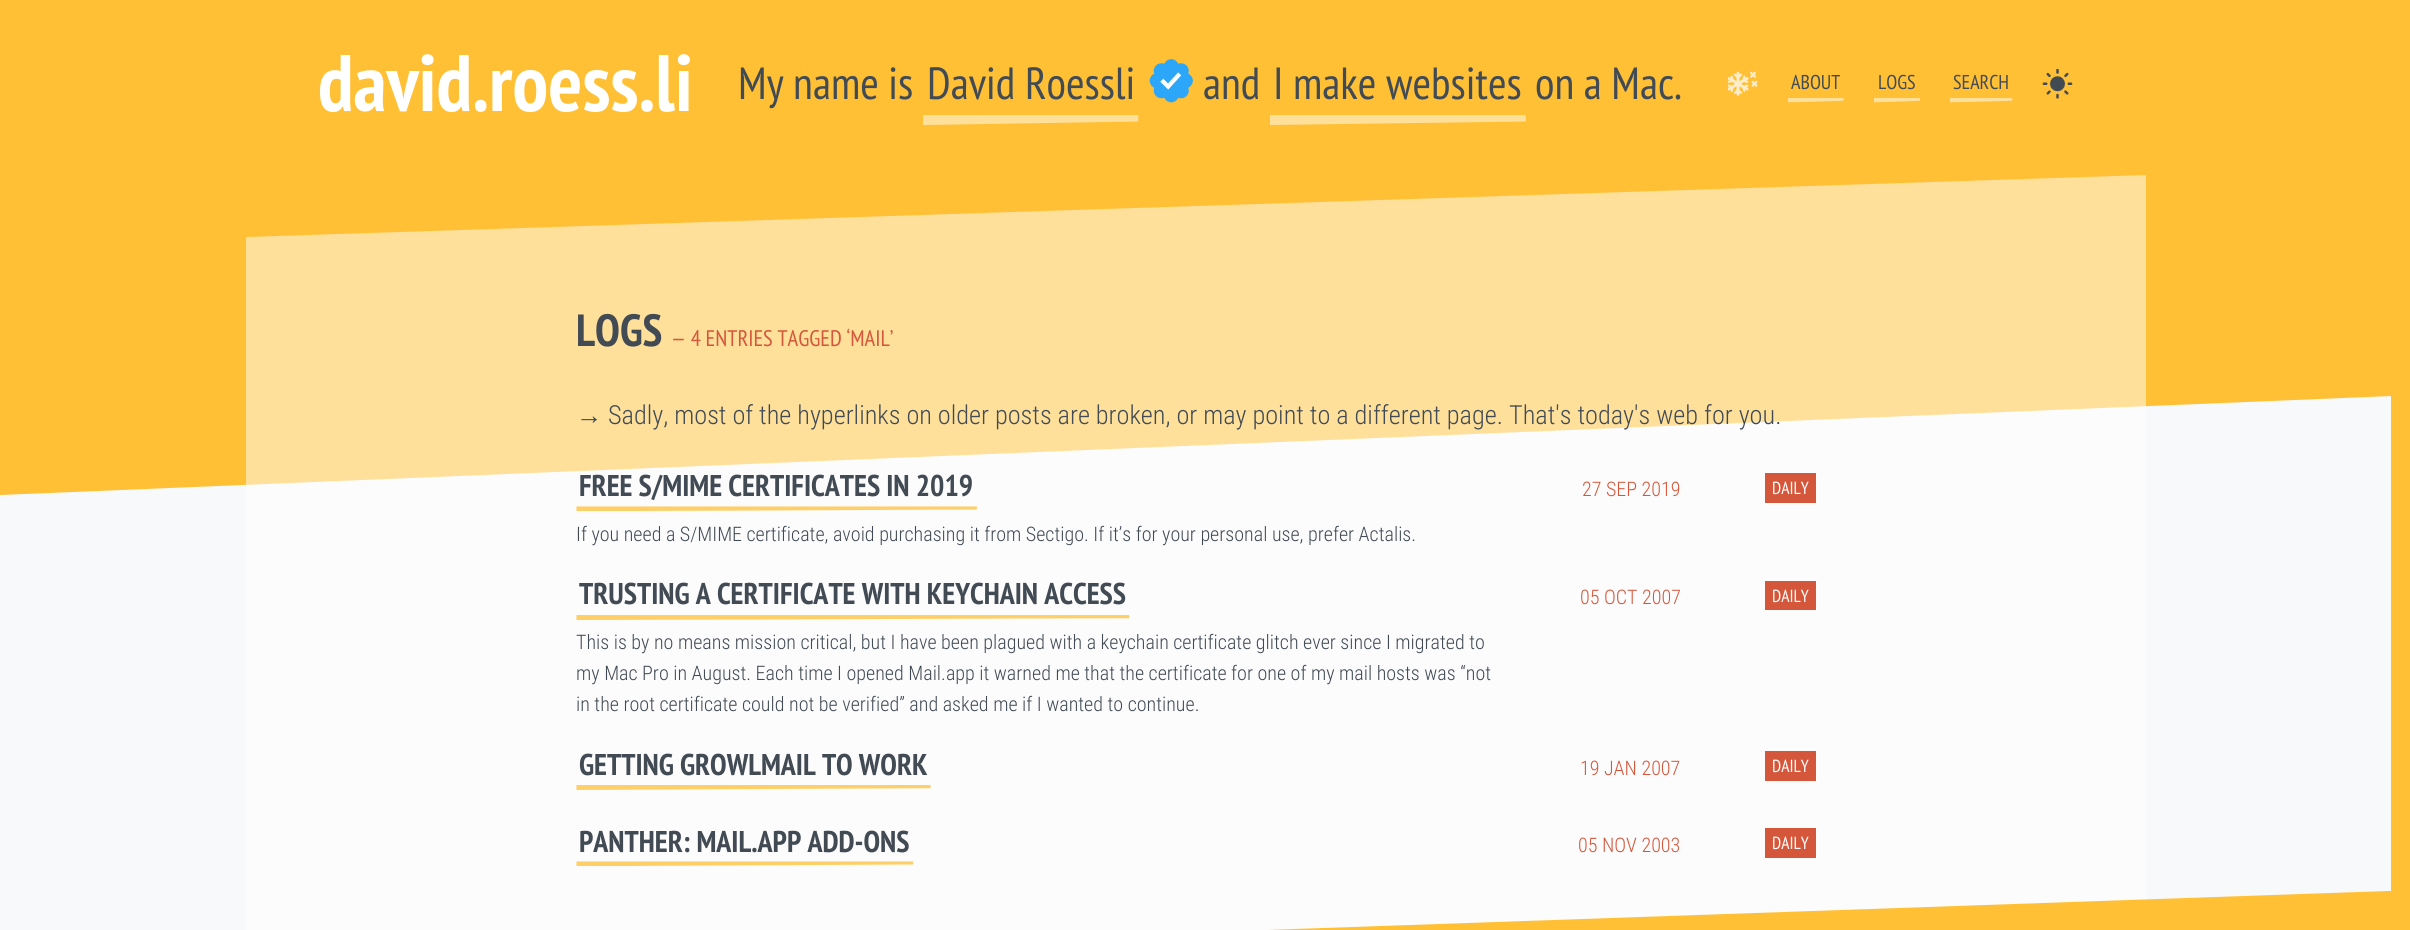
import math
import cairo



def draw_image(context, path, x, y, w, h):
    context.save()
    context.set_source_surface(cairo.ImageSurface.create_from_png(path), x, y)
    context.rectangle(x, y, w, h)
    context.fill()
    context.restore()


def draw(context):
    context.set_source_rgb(1, 192 / 255, 54 / 255)
    context.paint()
    context.set_source_rgb(248 / 255, 249 / 255, 250 / 255)
    context.rectangle(0, 396, 2391, 534)
    context.fill()
    context.set_source_rgb(1, 192 / 255, 54 / 255)
    context.new_path()
    context.move_to(0, 0)
    context.line_to(0, 495)
    context.line_to(2391, 396)
    context.line_to(2391, 0)
    context.close_path()
    context.fill()
    draw_image(context, "images/1.png", 1149, 59, 44, 44)
    draw_image(context, "images/2.png", 923, 115, 216, 10)
    draw_image(context, "images/3.png", 1270, 115, 256, 10)
    draw_image(context, "images/4.png", 1728, 71, 30, 25)
    draw_image(context, "images/5.png", 1788, 98, 56, 5)
    draw_image(context, "images/6.png", 1874, 98, 46, 5)
    draw_image(context, "images/7.png", 1950, 98, 63, 5)
    draw_image(context, "images/8.png", 2042, 68, 31, 31)
    context.set_source_rgba(1, 1, 1, 0.5)
    context.new_path()
    context.move_to(249, 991)
    context.line_to(246, 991)
    context.line_to(246, 237)
    context.line_to(2146, 175)
    context.line_to(2146, 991)
    context.close_path()
    context.fill()
    draw_image(context, "images/9.png", 576, 506, 401, 5)
    context.set_source_rgb(213 / 255, 87 / 255, 59 / 255)
    context.rectangle(1765, 473, 51, 30)
    context.fill()
    draw_image(context, "images/10.png", 576, 615, 554, 5)
    context.rectangle(1765, 581, 51, 29)
    context.fill()
    draw_image(context, "images/11.png", 576, 785, 355, 5)
    context.rectangle(1765, 751, 51, 30)
    context.fill()
    draw_image(context, "images/12.png", 576, 861, 338, 5)
    context.rectangle(1765, 828, 51, 30)
    context.fill()
    context.set_source_rgb(1, 192 / 255, 54 / 255)
    context.new_path()
    context.move_to(0, 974)
    context.line_to(0, 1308)
    context.line_to(2391, 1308)
    context.line_to(2391, 891)
    context.line_to(2387, 891)
    context.close_path()
    context.fill()
    context.select_font_face("PT Sans Narrow", cairo.FontSlant.NORMAL, cairo.FontWeight.BOLD)
    context.set_font_size(80)
    context.set_source_rgb(1, 1, 1)
    context.move_to(318, 111)
    context.show_text("david.roess.li")
    context.select_font_face("PT Sans Narrow")
    context.set_font_size(45)
    context.set_source_rgb(66 / 255, 75 / 255, 84 / 255)
    context.move_to(738, 99)
    context.show_text("My name is")
    context.move_to(927, 99)
    context.show_text("David Roessli")
    context.move_to(1203, 99)
    context.show_text("and")
    context.move_to(1273, 99)
    context.show_text("I make websites")
    context.move_to(1535, 99)
    context.show_text("on a Mac.")
    context.set_font_size(20)
    context.move_to(1791, 89)
    context.show_text("ABOUT")
    context.move_to(1878, 89)
    context.show_text("LOGS")
    context.move_to(1953, 89)
    context.show_text("SEARCH")
    context.select_font_face("PT Sans Narrow", cairo.FontSlant.NORMAL, cairo.FontWeight.BOLD)
    context.set_font_size(45)
    context.move_to(576, 346)
    context.show_text("LOGS")
    context.select_font_face("PT Sans Narrow")
    context.set_font_size(22.5)
    context.set_source_rgb(213 / 255, 87 / 255, 59 / 255)
    context.move_to(671, 346)
    context.show_text("— 4 ENTRIES TAGGED ‘MAIL’")
    context.select_font_face("Liberation Sans")
    context.set_font_size(26.25)
    context.set_source_rgb(66 / 255, 75 / 255, 84 / 255)
    context.move_to(576, 424)
    context.show_text("→")
    context.select_font_face("Roboto Condensed Light")
    context.move_to(608, 424)
    context.show_text("Sadly, most of the hyperlinks on older posts are broken, or may point to a different page. That's today's web for you.")
    context.select_font_face("PT Sans Narrow", cairo.FontSlant.NORMAL, cairo.FontWeight.BOLD)
    context.set_font_size(30)
    context.move_to(579, 496)
    context.show_text("FREE S/MIME CERTIFICATES IN 2019")
    context.select_font_face("Roboto Condensed Light")
    context.set_font_size(20)
    context.set_source_rgb(213 / 255, 87 / 255, 59 / 255)
    context.move_to(1582, 496)
    context.show_text("27 SEP 2019")
    context.select_font_face("PT Sans Narrow")
    context.set_font_size(17.5)
    context.set_source_rgb(1, 1, 1)
    context.move_to(1772, 494)
    context.show_text("DAILY")
    context.select_font_face("Roboto Condensed Light")
    context.set_font_size(20)
    context.set_source_rgb(66 / 255, 75 / 255, 84 / 255)
    context.move_to(576, 541)
    context.show_text("If you need a S/MIME certificate, avoid purchasing it from Sectigo. If it’s for your personal use, prefer Actalis.")
    context.select_font_face("PT Sans Narrow", cairo.FontSlant.NORMAL, cairo.FontWeight.BOLD)
    context.set_font_size(30)
    context.move_to(579, 604)
    context.show_text("TRUSTING A CERTIFICATE WITH KEYCHAIN ACCESS")
    context.select_font_face("Roboto Condensed Light")
    context.set_font_size(20)
    context.set_source_rgb(213 / 255, 87 / 255, 59 / 255)
    context.move_to(1580, 604)
    context.show_text("05 OCT 2007")
    context.select_font_face("PT Sans Narrow")
    context.set_font_size(17.5)
    context.set_source_rgb(1, 1, 1)
    context.move_to(1772, 602)
    context.show_text("DAILY")
    context.select_font_face("Roboto Condensed Light")
    context.set_font_size(20)
    context.set_source_rgb(66 / 255, 75 / 255, 84 / 255)
    context.move_to(576, 649)
    context.show_text("This is by no means mission critical, but I have been plagued with a keychain certificate glitch ever since I migrated to")
    context.move_to(576, 680)
    context.show_text("my Mac Pro in August. Each time I opened Mail.app it warned me that the certificate for one of my mail hosts was “not")
    context.move_to(576, 711)
    context.show_text("in the root certificate could not be verified” and asked me if I wanted to continue.")
    context.select_font_face("PT Sans Narrow", cairo.FontSlant.NORMAL, cairo.FontWeight.BOLD)
    context.set_font_size(30)
    context.move_to(579, 775)
    context.show_text("GETTING GROWLMAIL TO WORK")
    context.select_font_face("Roboto Condensed Light")
    context.set_font_size(20)
    context.set_source_rgb(213 / 255, 87 / 255, 59 / 255)
    context.move_to(1580, 775)
    context.show_text("19 JAN 2007")
    context.select_font_face("PT Sans Narrow")
    context.set_font_size(17.5)
    context.set_source_rgb(1, 1, 1)
    context.move_to(1772, 772)
    context.show_text("DAILY")
    context.select_font_face("PT Sans Narrow", cairo.FontSlant.NORMAL, cairo.FontWeight.BOLD)
    context.set_font_size(30)
    context.set_source_rgb(66 / 255, 75 / 255, 84 / 255)
    context.move_to(579, 852)
    context.show_text("PANTHER: MAIL.APP ADD-ONS")
    context.select_font_face("Roboto Condensed Light")
    context.set_font_size(20)
    context.set_source_rgb(213 / 255, 87 / 255, 59 / 255)
    context.move_to(1578, 852)
    context.show_text("05 NOV 2003")
    context.select_font_face("PT Sans Narrow")
    context.set_font_size(17.5)
    context.set_source_rgb(1, 1, 1)
    context.move_to(1772, 849)
    context.show_text("DAILY")


surface = cairo.ImageSurface(cairo.Format.RGB24, 2410, 930)
context = cairo.Context(surface)
options = cairo.FontOptions()
options.set_hint_metrics(cairo.HintMetrics.OFF)
options.set_hint_style(cairo.HintStyle.NONE)
context.set_font_options(options)
context.set_miter_limit(4)
draw(context)
surface.write_to_png("out.png")
